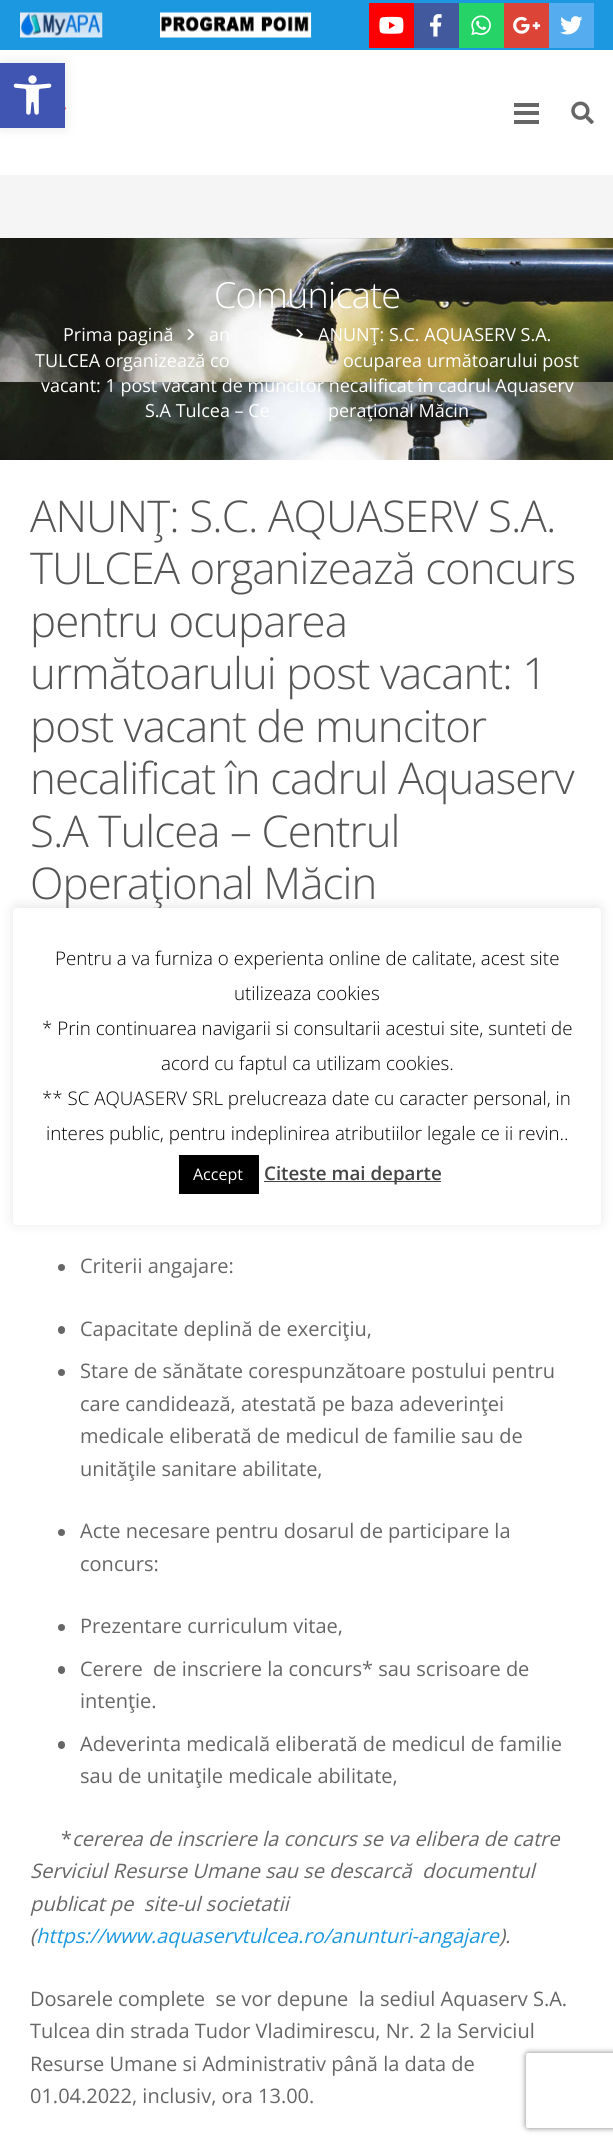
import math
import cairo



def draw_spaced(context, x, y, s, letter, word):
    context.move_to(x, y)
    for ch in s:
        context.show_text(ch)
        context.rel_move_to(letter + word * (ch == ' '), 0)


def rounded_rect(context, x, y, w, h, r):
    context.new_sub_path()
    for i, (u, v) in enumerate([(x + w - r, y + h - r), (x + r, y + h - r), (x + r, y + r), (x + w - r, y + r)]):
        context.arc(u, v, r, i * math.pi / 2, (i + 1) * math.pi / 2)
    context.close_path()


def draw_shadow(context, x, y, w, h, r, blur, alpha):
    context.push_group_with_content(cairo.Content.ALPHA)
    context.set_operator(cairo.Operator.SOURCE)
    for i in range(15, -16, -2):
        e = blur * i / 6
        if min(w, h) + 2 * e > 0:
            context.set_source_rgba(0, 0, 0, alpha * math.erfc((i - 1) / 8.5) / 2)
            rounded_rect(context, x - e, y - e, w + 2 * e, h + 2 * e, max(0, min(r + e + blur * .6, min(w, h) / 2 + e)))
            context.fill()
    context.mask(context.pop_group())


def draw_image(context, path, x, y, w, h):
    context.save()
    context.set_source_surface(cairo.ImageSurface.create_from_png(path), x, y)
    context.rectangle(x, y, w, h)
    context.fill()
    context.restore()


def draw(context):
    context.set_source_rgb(1, 1, 1)
    context.paint()
    context.set_source_rgb(27 / 255, 152 / 255, 224 / 255)
    context.rectangle(0, 0, 613, 50)
    context.fill()
    draw_image(context, "images/9.png", 65, 107, 2, 4)
    context.set_source_rgb(0, 0, 0)
    draw_shadow(context, 0, 63, 65, 65, 0, 6, 0.1)
    context.set_source_rgb(64 / 255, 84 / 255, 178 / 255)
    context.rectangle(0, 63, 65, 65)
    context.fill()
    draw_image(context, "images/1.png", 13, 75, 39, 40)
    draw_image(context, "images/2.png", 20, 12, 83, 26)
    draw_image(context, "images/3.png", 160, 12, 152, 26)
    context.set_source_rgb(1, 0, 0)
    context.rectangle(369, 3, 45, 45)
    context.fill()
    draw_image(context, "images/4.png", 379, 16, 25, 18)
    context.set_source_rgb(66 / 255, 89 / 255, 158 / 255)
    context.rectangle(414, 3, 45, 45)
    context.fill()
    draw_image(context, "images/5.png", 430, 14, 12, 23)
    context.set_source_rgb(37 / 255, 211 / 255, 102 / 255)
    context.rectangle(459, 3, 45, 45)
    context.fill()
    draw_image(context, "images/6.png", 471, 15, 20, 21)
    context.set_source_rgb(219 / 255, 68 / 255, 55 / 255)
    context.rectangle(504, 3, 45, 45)
    context.fill()
    draw_image(context, "images/7.png", 513, 16, 28, 18)
    context.set_source_rgb(85 / 255, 172 / 255, 238 / 255)
    context.rectangle(549, 3, 45, 45)
    context.fill()
    draw_image(context, "images/8.png", 560, 16, 23, 19)
    context.set_source_rgb(102 / 255, 102 / 255, 102 / 255)
    context.rectangle(514, 111, 25, 4)
    context.fill()
    context.rectangle(514, 103, 25, 4)
    context.fill()
    context.rectangle(514, 120, 25, 4)
    context.fill()
    draw_image(context, "images/10.png", 571, 101, 23, 23)
    draw_image(context, "images/11.png", 0, 238, 613, 222)
    context.set_source_rgba(0, 0, 0, 0.08)
    context.new_path()
    context.move_to(0, 238)
    context.line_to(0, 239)
    context.line_to(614, 239)
    context.line_to(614, 176)
    context.line_to(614, 238)
    context.close_path()
    context.fill()
    context.set_source_rgb(245 / 255, 245 / 255, 245 / 255)
    context.rectangle(0, 175, 613, 63)
    context.fill()
    draw_image(context, "images/12.png", 187, 328, 8, 13)
    draw_image(context, "images/13.png", 296, 328, 7, 12)
    context.set_source_rgb(102 / 255, 102 / 255, 102 / 255)
    context.arc(61.5, 1267.5, 3.5, 0, 2 * math.pi)
    context.fill()
    rounded_rect(context, 58, 1326, 7, 8, 3.5)
    context.fill()
    context.arc(61.5, 1372.5, 3.5, 0, 2 * math.pi)
    context.fill()
    context.arc(61.5, 1532.5, 3.5, 0, 2 * math.pi)
    context.fill()
    context.arc(61.5, 1627.5, 3.5, 0, 2 * math.pi)
    context.fill()
    rounded_rect(context, 58, 1666, 7, 8, 3.5)
    context.fill()
    rounded_rect(context, 58, 1741, 7, 8, 3.5)
    context.fill()
    context.set_source_rgb(172 / 255, 171 / 255, 171 / 255)
    draw_shadow(context, 13, 906, 588, 318, 4, 6, 0.3)
    context.save()
    context.set_fill_rule(cairo.FillRule.EVEN_ODD)
    context.new_path()
    context.move_to(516, 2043)
    context.line_to(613, 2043)
    context.line_to(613, 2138)
    context.line_to(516, 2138)
    context.close_path()
    context.move_to(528.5, 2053)
    context.line_to(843.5, 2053)
    context.curve_to(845, 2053, 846, 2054, 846, 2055.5)
    context.line_to(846, 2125.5)
    context.curve_to(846, 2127, 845, 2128, 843.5, 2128)
    context.line_to(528.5, 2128)
    context.curve_to(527, 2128, 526, 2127, 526, 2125.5)
    context.line_to(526, 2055.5)
    context.curve_to(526, 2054, 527, 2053, 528.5, 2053)
    context.close_path()
    context.clip()
    context.set_source_rgb(128 / 255, 128 / 255, 128 / 255)
    draw_shadow(context, 526, 2053, 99, 75, 2.5, 3, 1)
    context.restore()
    context.select_font_face("Open Sans Light")
    context.set_font_size(36)
    context.set_source_rgb(1, 1, 1)
    draw_spaced(context, 214, 308, "Comunicate", -0.75, 0)
    context.select_font_face("Open Sans")
    context.set_font_size(18)
    context.move_to(63, 341)
    context.show_text("Prima pagină")
    context.move_to(209, 341)
    context.show_text("an")
    context.move_to(318, 341)
    context.show_text("ANUNŢ: S.C. AQUASERV S.A.")
    context.move_to(35, 367)
    context.show_text("TULCEA organizează co")
    context.move_to(343, 367)
    context.show_text("ocuparea următoarului post")
    context.move_to(41, 392)
    context.show_text("vacant: 1 post vacant de muncitor necalificat în cadrul Aquaserv")
    context.move_to(145, 417)
    context.show_text("S.A Tulcea – Ce")
    context.move_to(328, 417)
    context.show_text("peraţional Măcin")
    context.select_font_face("Open Sans Light")
    context.set_font_size(43.75)
    context.set_source_rgb(85 / 255, 85 / 255, 85 / 255)
    draw_spaced(context, 30, 532, "ANUNŢ: S.C. AQUASERV S.A.", -0.9, 0)
    draw_spaced(context, 30, 584, "TULCEA organizează concurs", -0.9, 0)
    draw_spaced(context, 30, 637, "pentru ocuparea", -0.9, 0)
    draw_spaced(context, 30, 689, "următoarului post vacant: 1", -0.9, 0)
    draw_spaced(context, 30, 742, "post vacant de muncitor", -0.9, 0)
    draw_spaced(context, 30, 794, "necalificat în cadrul Aquaserv", -0.9, 0)
    draw_spaced(context, 30, 847, "S.A Tulcea – Centrul", -0.9, 0)
    draw_spaced(context, 30, 899, "Operaţional Măcin", -0.9, 0)
    context.select_font_face("Open Sans")
    context.set_font_size(20)
    context.set_source_rgb(102 / 255, 102 / 255, 102 / 255)
    context.move_to(80, 1273)
    context.show_text("Criterii angajare:")
    context.move_to(80, 1336)
    context.show_text("Capacitate deplină de exerciţiu,")
    context.move_to(80, 1378)
    context.show_text("Stare de sănătate corespunzătoare postului pentru")
    context.move_to(80, 1411)
    context.show_text("care candidează, atestată pe baza adeverinţei")
    context.move_to(80, 1443)
    context.show_text("medicale eliberată de medicul de familie sau de")
    context.move_to(80, 1476)
    context.show_text("unităţile sanitare abilitate,")
    context.move_to(80, 1538)
    context.show_text("Acte necesare pentru dosarul de participare la")
    context.move_to(80, 1571)
    context.show_text("concurs:")
    context.move_to(80, 1633)
    context.show_text("Prezentare curriculum vitae,")
    context.move_to(80, 1676)
    context.show_text("Cerere  de inscriere la concurs* sau scrisoare de")
    context.move_to(80, 1708)
    context.show_text("intenţie.")
    context.move_to(80, 1751)
    context.show_text("Adeverinta medicală eliberată de medicul de familie")
    context.move_to(80, 1783)
    context.show_text("sau de unitaţile medicale abilitate,")
    context.move_to(61, 1846)
    context.show_text("*")
    context.select_font_face("Open Sans", cairo.FontSlant.ITALIC)
    context.move_to(72, 1846)
    context.show_text("cererea de inscriere la concurs se va elibera de catre")
    context.move_to(30, 1878)
    context.show_text("Serviciul Resurse Umane sau se descarcă  documentul")
    context.move_to(30, 1911)
    context.show_text("publicat pe  site-ul societatii")
    context.move_to(30, 1943)
    context.show_text("(")
    context.set_source_rgb(27 / 255, 152 / 255, 224 / 255)
    context.move_to(36, 1943)
    context.show_text("https://www.aquaservtulcea.ro/anunturi-angajare")
    context.set_source_rgb(102 / 255, 102 / 255, 102 / 255)
    context.move_to(499, 1943)
    context.show_text(").")
    context.select_font_face("Open Sans")
    context.move_to(30, 2006)
    context.show_text("Dosarele complete  se vor depune  la sediul Aquaserv S.A.")
    context.move_to(30, 2038)
    context.show_text("Tulcea din strada Tudor Vladimirescu, Nr. 2 la Serviciul")
    context.move_to(30, 2071)
    context.show_text("Resurse Umane si Administrativ până la data de")
    context.move_to(30, 2103)
    context.show_text("01.04.2022, inclusiv, ora 13.00.")
    context.set_source_rgb(1, 1, 1)
    rounded_rect(context, 13, 908, 588, 317, 4)
    context.fill()
    context.select_font_face("Open Sans Light")
    context.set_font_size(18.75)
    context.set_source_rgb(0, 0, 0)
    context.move_to(55, 965)
    context.show_text("Pentru a va furniza o experienta online de calitate, acest site")
    context.move_to(234, 1000)
    context.show_text("utilizeaza cookies")
    context.move_to(42, 1035)
    context.show_text("* Prin continuarea navigarii si consultarii acestui site, sunteti de")
    context.move_to(161, 1070)
    context.show_text("acord cu faptul ca utilizam cookies.")
    context.move_to(42, 1105)
    context.show_text("** SC AQUASERV SRL prelucreaza date cu caracter personal, in")
    context.move_to(46, 1140)
    context.show_text("interes public, pentru indeplinirea atributiilor legale ce ii revin..")
    context.rectangle(179, 1155, 80, 39)
    context.fill()
    context.select_font_face("Open Sans")
    context.set_font_size(16)
    context.set_source_rgb(1, 1, 1)
    context.move_to(193, 1180)
    context.show_text("Accept")
    context.set_source_rgb(68 / 255, 68 / 255, 68 / 255)
    context.rectangle(264, 1181, 177, 1)
    context.fill()
    context.select_font_face("Open Sans SemiBold")
    context.set_font_size(18.75)
    context.move_to(264, 1180)
    context.show_text("Citeste mai departe")


surface = cairo.ImageSurface(cairo.Format.RGB24, 613, 2144)
context = cairo.Context(surface)
options = cairo.FontOptions()
options.set_hint_metrics(cairo.HintMetrics.OFF)
options.set_hint_style(cairo.HintStyle.NONE)
context.set_font_options(options)
context.set_miter_limit(4)
draw(context)
surface.write_to_png("out.png")
